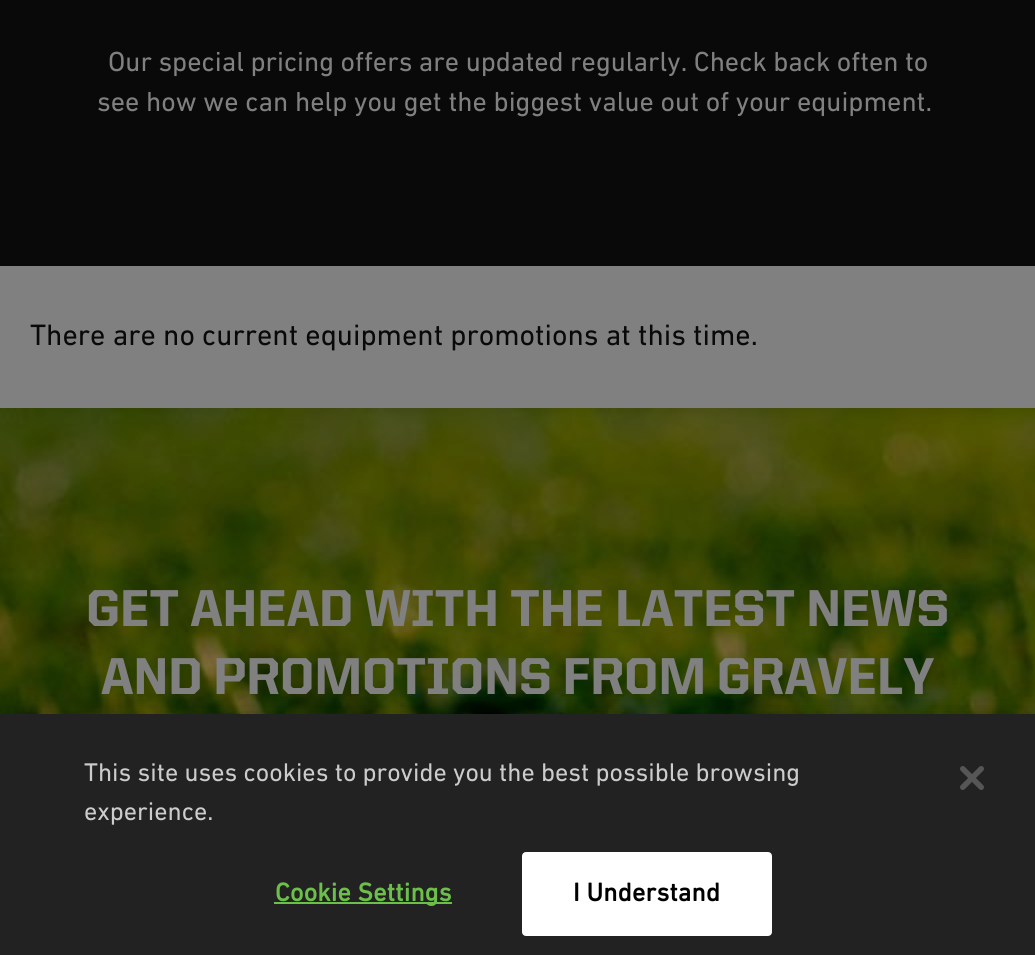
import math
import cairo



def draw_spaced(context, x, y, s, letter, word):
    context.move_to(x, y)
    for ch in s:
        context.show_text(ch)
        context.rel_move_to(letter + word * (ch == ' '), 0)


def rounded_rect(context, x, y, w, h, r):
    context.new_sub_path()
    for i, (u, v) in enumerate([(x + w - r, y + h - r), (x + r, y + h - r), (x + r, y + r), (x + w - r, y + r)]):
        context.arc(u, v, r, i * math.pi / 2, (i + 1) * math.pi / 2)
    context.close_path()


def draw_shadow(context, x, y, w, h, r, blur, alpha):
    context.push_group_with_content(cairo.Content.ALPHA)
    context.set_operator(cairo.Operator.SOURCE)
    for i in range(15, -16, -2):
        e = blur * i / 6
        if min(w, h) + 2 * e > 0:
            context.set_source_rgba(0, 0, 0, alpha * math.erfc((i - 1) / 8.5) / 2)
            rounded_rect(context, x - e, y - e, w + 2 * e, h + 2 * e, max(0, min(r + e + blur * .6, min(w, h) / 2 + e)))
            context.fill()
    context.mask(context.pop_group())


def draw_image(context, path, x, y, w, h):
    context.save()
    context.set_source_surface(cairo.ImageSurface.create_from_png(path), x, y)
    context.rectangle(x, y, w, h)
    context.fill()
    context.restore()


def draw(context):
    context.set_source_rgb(128 / 255, 128 / 255, 128 / 255)
    context.paint()
    context.set_source_rgb(9 / 255, 9 / 255, 9 / 255)
    context.rectangle(0, 0, 1035, 266)
    context.fill()
    draw_image(context, "images/1.png", 0, 408, 1035, 306)
    context.set_source_rgb(0, 0, 0)
    draw_shadow(context, 0, 714, 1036, 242, 0, 18, 0.2)
    context.set_source_rgb(34 / 255, 34 / 255, 34 / 255)
    context.rectangle(0, 714, 1035, 241)
    context.fill()
    context.set_source_rgb(108 / 255, 192 / 255, 74 / 255)
    context.rectangle(274, 902, 178, 2)
    context.fill()
    context.set_source_rgb(1, 1, 1)
    rounded_rect(context, 523, 853, 248, 82, 3)
    context.fill_preserve()
    context.stroke()
    draw_image(context, "images/2.png", 960, 766, 24, 24)
    context.select_font_face("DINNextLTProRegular")
    context.set_font_size(28)
    context.set_source_rgb(128 / 255, 128 / 255, 128 / 255)
    draw_spaced(context, 108, 71, "Our special pricing offers are updated regularly. Check back often to", 0, -0.25)
    context.move_to(97, 111)
    context.show_text("see how we can help you get the biggest value out of your equipment.")
    context.set_font_size(30)
    context.set_source_rgb(9 / 255, 9 / 255, 9 / 255)
    context.move_to(30, 345)
    context.show_text("There are no current equipment promotions at this time.")
    context.select_font_face("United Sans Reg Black")
    context.set_font_size(52)
    context.set_source_rgb(128 / 255, 128 / 255, 128 / 255)
    draw_spaced(context, 86, 626, "GET AHEAD WITH THE LATEST NEWS", 0, -1.5)
    draw_spaced(context, 101, 694, "AND PROMOTIONS FROM GRAVELY", 0, -2)
    context.select_font_face("DINNextLTProRegular")
    context.set_font_size(26)
    context.set_source_rgb(204 / 255, 204 / 255, 204 / 255)
    context.move_to(84, 781)
    context.show_text("This site uses cookies to provide you the best possible browsing")
    context.move_to(84, 820)
    context.show_text("experience.")
    context.select_font_face("DINNextLTProRegular", cairo.FontSlant.NORMAL, cairo.FontWeight.BOLD)
    context.set_source_rgb(108 / 255, 192 / 255, 74 / 255)
    draw_spaced(context, 275, 901, "Cookie Settings", 0.25, 0)
    context.set_source_rgb(0, 0, 0)
    draw_spaced(context, 573, 901, "I Understand", 0.25, 0)


surface = cairo.ImageSurface(cairo.Format.RGB24, 1035, 955)
context = cairo.Context(surface)
options = cairo.FontOptions()
options.set_hint_metrics(cairo.HintMetrics.OFF)
options.set_hint_style(cairo.HintStyle.NONE)
context.set_font_options(options)
context.set_miter_limit(4)
draw(context)
surface.write_to_png("out.png")
